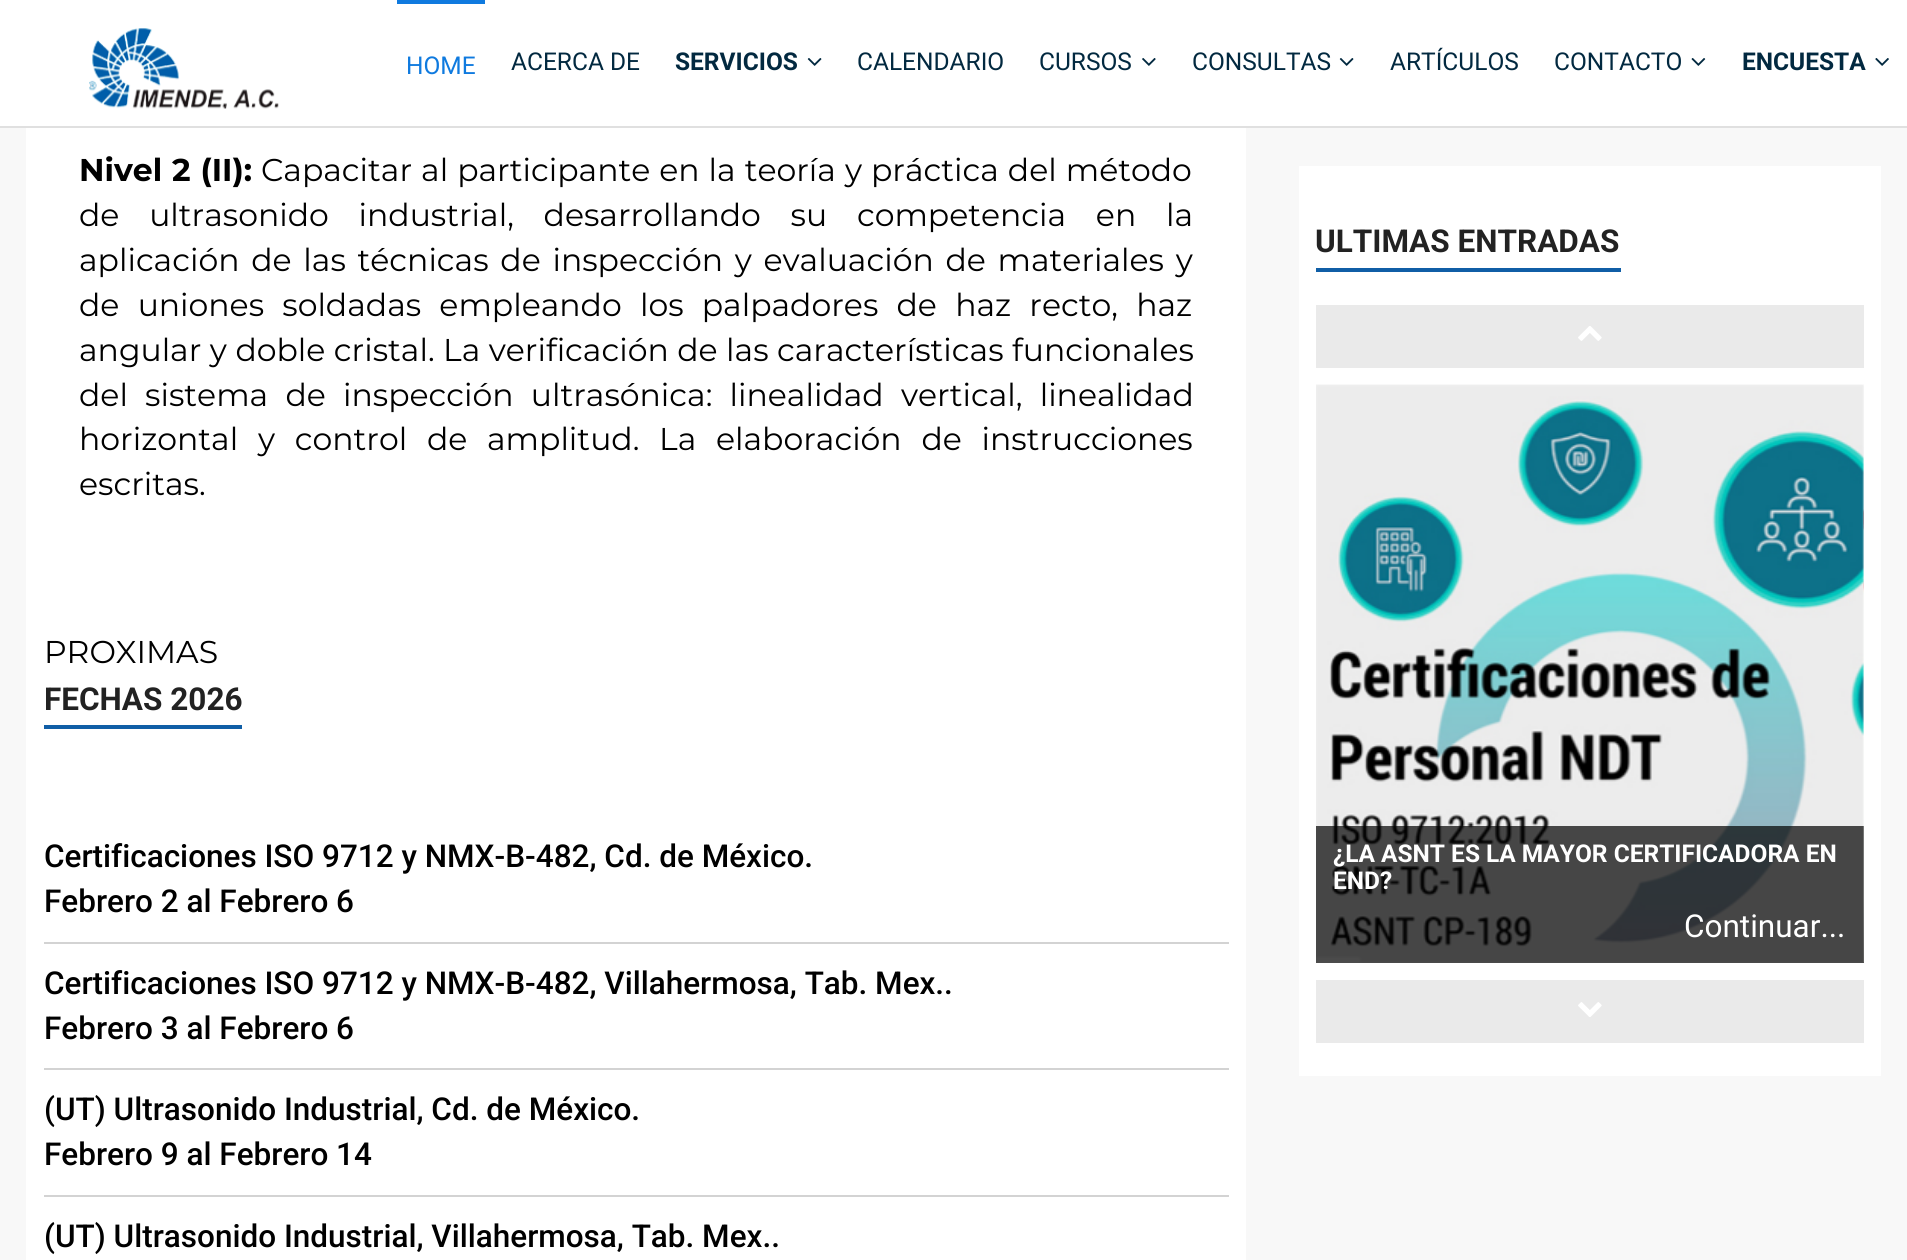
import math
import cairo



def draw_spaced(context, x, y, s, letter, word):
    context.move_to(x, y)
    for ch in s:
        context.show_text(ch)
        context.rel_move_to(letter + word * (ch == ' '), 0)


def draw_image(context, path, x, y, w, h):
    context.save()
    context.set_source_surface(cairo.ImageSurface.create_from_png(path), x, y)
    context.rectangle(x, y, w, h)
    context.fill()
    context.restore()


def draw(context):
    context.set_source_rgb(248 / 255, 248 / 255, 248 / 255)
    context.paint()
    context.set_source_rgb(1, 1, 1)
    context.rectangle(0, 0, 1907, 126)
    context.fill()
    context.set_source_rgb(224 / 255, 224 / 255, 224 / 255)
    context.rectangle(0, 126, 1907, 2)
    context.fill()
    draw_image(context, "images/1.png", 89, 28, 190, 81)
    context.set_source_rgb(15 / 255, 122 / 255, 223 / 255)
    context.rectangle(397, 0, 88, 4)
    context.fill()
    draw_image(context, "images/2.png", 807, 58, 15, 8)
    draw_image(context, "images/3.png", 1142, 58, 14, 8)
    draw_image(context, "images/2.png", 1339, 58, 15, 8)
    draw_image(context, "images/4.png", 1691, 58, 15, 8)
    draw_image(context, "images/5.png", 1875, 58, 14, 8)
    context.set_source_rgb(1, 1, 1)
    context.rectangle(26, 128, 1220, 1132)
    context.fill()
    context.set_source_rgb(16 / 255, 94 / 255, 166 / 255)
    context.rectangle(44, 725, 198, 4)
    context.fill()
    context.set_source_rgb(211 / 255, 211 / 255, 211 / 255)
    context.rectangle(44, 942, 1185, 2)
    context.fill()
    context.rectangle(44, 1068, 1185, 2)
    context.fill()
    context.rectangle(44, 1195, 1185, 2)
    context.fill()
    context.set_source_rgb(1, 1, 1)
    context.rectangle(1299, 166, 582, 910)
    context.fill()
    context.set_source_rgb(16 / 255, 94 / 255, 166 / 255)
    context.rectangle(1316, 268, 305, 4)
    context.fill()
    context.set_source_rgb(234 / 255, 234 / 255, 234 / 255)
    context.rectangle(1316, 305, 548, 63)
    context.fill()
    draw_image(context, "images/6.png", 1578, 326, 24, 15)
    context.rectangle(1316, 980, 548, 63)
    context.fill()
    draw_image(context, "images/7.png", 1578, 1002, 24, 15)
    draw_image(context, "images/8.png", 1316, 384, 548, 579)
    context.set_source_rgba(0, 0, 0, 0.7)
    context.rectangle(1316, 826, 548, 137)
    context.fill()
    draw_image(context, "images/9.png", 1863, 456, 1, 507)
    context.select_font_face("Roboto")
    context.set_font_size(24.5)
    context.set_source_rgb(15 / 255, 122 / 255, 223 / 255)
    context.move_to(406, 74)
    context.show_text("HOME")
    context.set_source_rgb(2 / 255, 41 / 255, 64 / 255)
    context.move_to(511, 70)
    context.show_text("ACERCA DE")
    context.select_font_face("Roboto", cairo.FontSlant.NORMAL, cairo.FontWeight.BOLD)
    context.move_to(675, 70)
    context.show_text("SERVICIOS")
    context.select_font_face("Roboto")
    context.move_to(857, 70)
    context.show_text("CALENDARIO")
    context.move_to(1039, 70)
    context.show_text("CURSOS")
    context.move_to(1192, 70)
    context.show_text("CONSULTAS")
    context.move_to(1390, 70)
    context.show_text("ARTÍCULOS")
    context.move_to(1554, 70)
    context.show_text("CONTACTO")
    context.select_font_face("Roboto", cairo.FontSlant.NORMAL, cairo.FontWeight.BOLD)
    context.move_to(1742, 70)
    context.show_text("ENCUESTA")
    context.select_font_face("Montserrat", cairo.FontSlant.NORMAL, cairo.FontWeight.BOLD)
    context.set_font_size(31.5)
    context.set_source_rgb(0, 0, 0)
    draw_spaced(context, 79, 181, "Nivel 2 (II):", 0, 1)
    context.select_font_face("Montserrat")
    draw_spaced(context, 261, 181, "Capacitar al participante en la teoría y práctica del método", 0, 0.75)
    draw_spaced(context, 79, 226, "de ultrasonido industrial, desarrollando su competencia en la", 0, 21.5)
    draw_spaced(context, 79, 271, "aplicación de las técnicas de inspección y evaluación de materiales y", 0, 3.5)
    draw_spaced(context, 79, 316, "de uniones soldadas empleando los palpadores de haz recto, haz", 0, 10)
    draw_spaced(context, 79, 361, "angular y doble cristal. La verificación de las características funcionales", 0, 0.25)
    draw_spaced(context, 79, 406, "del sistema de inspección ultrasónica: linealidad vertical, linealidad", 0, 9)
    draw_spaced(context, 79, 450, "horizontal y control de amplitud. La elaboración de instrucciones", 0, 11.5)
    context.move_to(79, 495)
    context.show_text("escritas.")
    context.move_to(44, 663)
    context.show_text("PROXIMAS")
    context.select_font_face("Roboto", cairo.FontSlant.NORMAL, cairo.FontWeight.BOLD)
    context.set_source_rgb(34 / 255, 34 / 255, 34 / 255)
    context.move_to(44, 710)
    context.show_text("FECHAS 2026")
    context.select_font_face("Roboto Medium")
    context.set_source_rgb(0, 0, 0)
    context.move_to(44, 867)
    context.show_text("Certificaciones ISO 9712 y NMX-B-482, Cd. de México.")
    context.move_to(44, 912)
    context.show_text("Febrero 2 al Febrero 6")
    context.move_to(44, 994)
    context.show_text("Certificaciones ISO 9712 y NMX-B-482, Villahermosa, Tab. Mex..")
    context.move_to(44, 1039)
    context.show_text("Febrero 3 al Febrero 6")
    context.move_to(44, 1120)
    context.show_text("(UT) Ultrasonido Industrial, Cd. de México.")
    context.move_to(44, 1165)
    context.show_text("Febrero 9 al Febrero 14")
    context.move_to(44, 1247)
    context.show_text("(UT) Ultrasonido Industrial, Villahermosa, Tab. Mex..")
    context.select_font_face("Roboto", cairo.FontSlant.NORMAL, cairo.FontWeight.BOLD)
    context.set_source_rgb(34 / 255, 34 / 255, 34 / 255)
    context.move_to(1315, 252)
    context.show_text("ULTIMAS ENTRADAS")
    context.set_font_size(24.5)
    context.set_source_rgb(1, 1, 1)
    context.move_to(1333, 862)
    context.show_text("¿LA ASNT ES LA MAYOR CERTIFICADORA EN")
    context.move_to(1333, 889)
    context.show_text("END?")
    context.select_font_face("Roboto")
    context.set_font_size(31.5)
    context.move_to(1684, 937)
    context.show_text("Continuar...")


surface = cairo.ImageSurface(cairo.Format.RGB24, 1907, 1260)
context = cairo.Context(surface)
options = cairo.FontOptions()
options.set_hint_metrics(cairo.HintMetrics.OFF)
options.set_hint_style(cairo.HintStyle.NONE)
context.set_font_options(options)
context.set_miter_limit(4)
draw(context)
surface.write_to_png("out.png")
